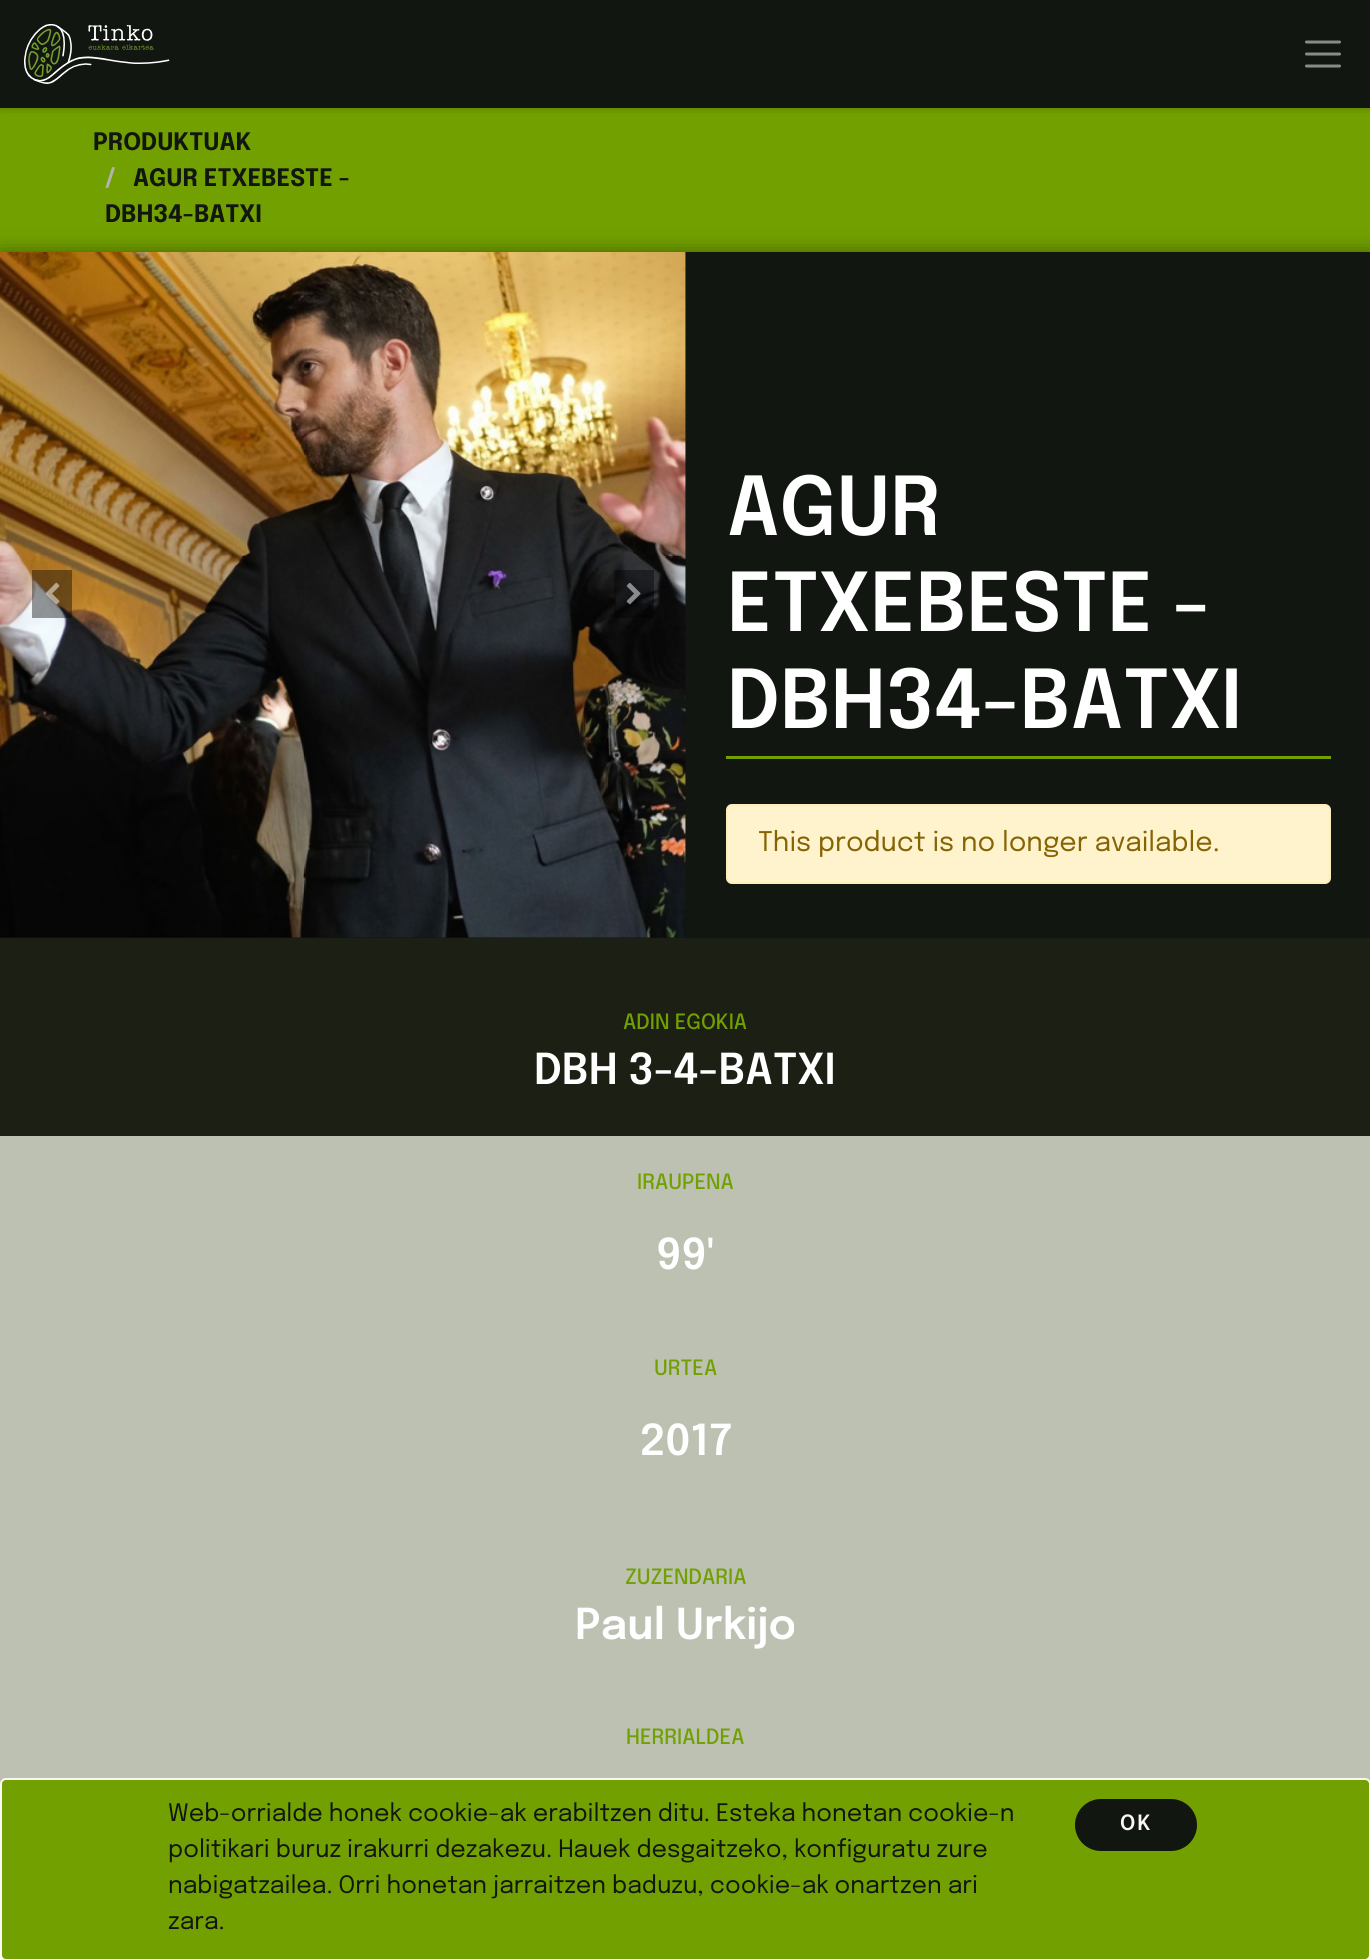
import math
import cairo



def draw_spaced(context, x, y, s, letter, word):
    context.move_to(x, y)
    for ch in s:
        context.show_text(ch)
        context.rel_move_to(letter + word * (ch == ' '), 0)


def rounded_rect(context, x, y, w, h, r):
    context.new_sub_path()
    for i, (u, v) in enumerate([(x + w - r, y + h - r), (x + r, y + h - r), (x + r, y + r), (x + w - r, y + r)]):
        context.arc(u, v, r, i * math.pi / 2, (i + 1) * math.pi / 2)
    context.close_path()


def draw_shadow(context, x, y, w, h, r, blur, alpha):
    context.push_group_with_content(cairo.Content.ALPHA)
    context.set_operator(cairo.Operator.SOURCE)
    for i in range(15, -16, -2):
        e = blur * i / 6
        if min(w, h) + 2 * e > 0:
            context.set_source_rgba(0, 0, 0, alpha * math.erfc((i - 1) / 8.5) / 2)
            rounded_rect(context, x - e, y - e, w + 2 * e, h + 2 * e, max(0, min(r + e + blur * .6, min(w, h) / 2 + e)))
            context.fill()
    context.mask(context.pop_group())


def draw_image(context, path, x, y, w, h):
    context.save()
    context.set_source_surface(cairo.ImageSurface.create_from_png(path), x, y)
    context.rectangle(x, y, w, h)
    context.fill()
    context.restore()


def draw(context):
    context.set_source_rgb(250 / 255, 250 / 255, 250 / 255)
    context.paint()
    context.set_source_rgb(114 / 255, 160 / 255, 0)
    context.rectangle(0, 108, 1370, 144)
    context.fill()
    context.set_source_rgb(0, 0, 0)
    draw_shadow(context, 0, 0, 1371, 108, 0, 4, 0.25)
    context.set_source_rgb(18 / 255, 22 / 255, 17 / 255)
    context.rectangle(0, 0, 1370, 108)
    context.fill()
    draw_image(context, "images/1.png", 24, 24, 146, 60)
    context.new_path()
    context.move_to(1306.5, 42)
    context.line_to(1339.5, 42)
    context.move_to(1306.5, 54)
    context.line_to(1339.5, 54)
    context.move_to(1306.5, 66)
    context.line_to(1339.5, 66)
    context.set_source_rgb(137 / 255, 139 / 255, 136 / 255)
    context.set_line_width(3)
    context.set_line_cap(cairo.LineCap.ROUND)
    context.stroke()
    context.set_source_rgb(0, 0, 0)
    draw_shadow(context, 0, 252, 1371, 686, 0, 10, 0.4)
    context.set_source_rgb(18 / 255, 22 / 255, 17 / 255)
    context.rectangle(0, 252, 1370, 686)
    context.fill()
    draw_image(context, "images/2.png", 0, 252, 686, 686)
    context.set_source_rgba(0, 0, 0, 0.4)
    context.rectangle(32, 570, 40, 48)
    context.fill()
    draw_image(context, "images/3.png", 45, 582, 15, 23)
    context.rectangle(614, 570, 40, 48)
    context.fill()
    draw_image(context, "images/4.png", 626, 582, 15, 23)
    context.set_source_rgb(114 / 255, 160 / 255, 0)
    context.rectangle(726, 756, 605, 3)
    context.fill()
    context.set_source_rgb(1, 243 / 255, 205 / 255)
    rounded_rect(context, 727, 805, 603, 78, 5)
    context.fill_preserve()
    context.set_source_rgb(1, 238 / 255, 186 / 255)
    context.set_line_width(2)
    context.set_line_cap(cairo.LineCap.BUTT)
    context.stroke()
    context.set_source_rgb(188 / 255, 193 / 255, 178 / 255)
    context.rectangle(0, 1136, 1370, 648)
    context.fill()
    context.set_source_rgb(28 / 255, 31 / 255, 20 / 255)
    context.rectangle(0, 938, 1370, 198)
    context.fill()
    context.set_source_rgb(114 / 255, 160 / 255, 0)
    rounded_rect(context, 1, 1779, 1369, 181, 5)
    context.fill_preserve()
    context.set_source_rgb(249 / 255, 248 / 255, 242 / 255)
    context.stroke()
    context.set_source_rgb(18 / 255, 22 / 255, 17 / 255)
    rounded_rect(context, 1074, 1798, 124, 54, 27)
    context.fill_preserve()
    context.set_source_rgb(114 / 255, 160 / 255, 0)
    context.stroke()
    context.select_font_face("Epilogue", cairo.FontSlant.NORMAL, cairo.FontWeight.BOLD)
    context.set_font_size(24)
    context.set_source_rgb(18 / 255, 22 / 255, 17 / 255)
    context.move_to(93, 150)
    context.show_text("PRODUKTUAK")
    context.set_source_rgb(179 / 255, 178 / 255, 178 / 255)
    context.move_to(105, 186)
    context.show_text("/")
    context.set_source_rgb(18 / 255, 22 / 255, 17 / 255)
    context.move_to(133, 186)
    context.show_text("AGUR ETXEBESTE -")
    context.move_to(105, 222)
    context.show_text("DBH34-BATXI")
    context.select_font_face("Epilogue SemiBold")
    context.set_font_size(80.75)
    context.set_source_rgb(1, 1, 1)
    context.move_to(727, 535)
    context.show_text("AGUR")
    context.move_to(727, 631)
    context.show_text("ETXEBESTE -")
    context.move_to(727, 728)
    context.show_text("DBH34-BATXI")
    context.select_font_face("Epilogue")
    context.set_font_size(27)
    context.set_source_rgb(133 / 255, 100 / 255, 4 / 255)
    context.move_to(758, 851)
    context.show_text("This product is no longer available.")
    context.select_font_face("Epilogue Medium")
    context.set_font_size(21)
    context.set_source_rgb(114 / 255, 160 / 255, 0)
    context.move_to(623, 1029)
    context.show_text("ADIN EGOKIA")
    context.select_font_face("Epilogue SemiBold")
    context.set_font_size(42.5)
    context.set_source_rgb(1, 1, 1)
    context.move_to(534, 1084)
    context.show_text("DBH 3-4-BATXI")
    context.select_font_face("Epilogue Medium")
    context.set_font_size(21)
    context.set_source_rgb(114 / 255, 160 / 255, 0)
    context.move_to(637, 1189)
    context.show_text("IRAUPENA")
    context.select_font_face("Epilogue SemiBold")
    context.set_font_size(42.5)
    context.set_source_rgb(1, 1, 1)
    context.move_to(656, 1269)
    context.show_text("99'")
    context.select_font_face("Epilogue Medium")
    context.set_font_size(21)
    context.set_source_rgb(114 / 255, 160 / 255, 0)
    context.move_to(654, 1375)
    context.show_text("URTEA")
    context.select_font_face("Epilogue SemiBold")
    context.set_font_size(42.5)
    context.set_source_rgb(1, 1, 1)
    context.move_to(640, 1455)
    context.show_text("2017")
    context.select_font_face("Epilogue Medium")
    context.set_font_size(21)
    context.set_source_rgb(114 / 255, 160 / 255, 0)
    context.move_to(625, 1584)
    context.show_text("ZUZENDARIA")
    context.select_font_face("Epilogue SemiBold")
    context.set_font_size(42.5)
    context.set_source_rgb(1, 1, 1)
    context.move_to(575, 1639)
    context.show_text("Paul Urkijo")
    context.select_font_face("Epilogue Medium")
    context.set_font_size(21)
    context.set_source_rgb(114 / 255, 160 / 255, 0)
    context.move_to(626, 1744)
    context.show_text("HERRIALDEA")
    context.select_font_face("Epilogue")
    context.set_font_size(24)
    context.set_source_rgb(18 / 255, 22 / 255, 17 / 255)
    context.move_to(168, 1821)
    context.show_text("Web-orrialde honek cookie-ak erabiltzen ditu. Esteka honetan cookie-n")
    context.move_to(168, 1857)
    context.show_text("politikari buruz irakurri dezakezu. Hauek desgaitzeko, konfiguratu zure")
    context.move_to(168, 1893)
    context.show_text("nabigatzailea. Orri honetan jarraitzen baduzu, cookie-ak onartzen ari")
    context.move_to(168, 1929)
    context.show_text("zara.")
    context.select_font_face("Epilogue SemiBold")
    context.set_font_size(21)
    context.set_source_rgb(249 / 255, 248 / 255, 242 / 255)
    draw_spaced(context, 1120, 1830, "OK", 2, 0)


surface = cairo.ImageSurface(cairo.Format.RGB24, 1370, 1960)
context = cairo.Context(surface)
options = cairo.FontOptions()
options.set_hint_metrics(cairo.HintMetrics.OFF)
options.set_hint_style(cairo.HintStyle.NONE)
context.set_font_options(options)
context.set_miter_limit(4)
draw(context)
surface.write_to_png("out.png")
